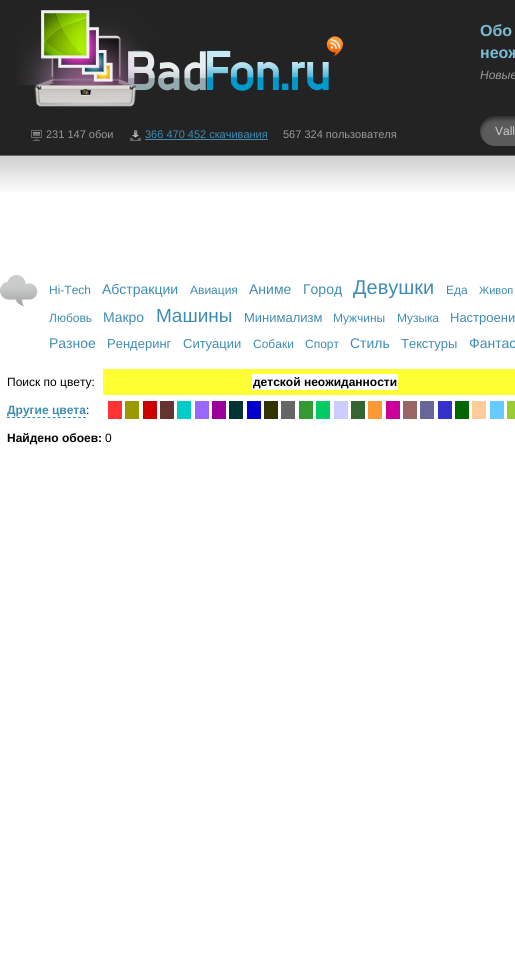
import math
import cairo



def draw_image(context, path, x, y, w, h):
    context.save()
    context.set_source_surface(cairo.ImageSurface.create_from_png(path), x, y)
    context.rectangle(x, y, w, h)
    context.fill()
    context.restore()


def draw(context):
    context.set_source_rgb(1, 1, 1)
    context.paint()
    draw_image(context, "images/1.png", 0, 0, 515, 192)
    draw_image(context, "images/2.png", 17, 10, 326, 97)
    draw_image(context, "images/3.png", 31, 130, 11, 11)
    draw_image(context, "images/4.png", 130, 130, 11, 11)
    context.set_source_rgb(63 / 255, 140 / 255, 178 / 255)
    context.rectangle(145, 139, 123, 1)
    context.fill()
    draw_image(context, "images/5.png", 480, 116, 35, 30)
    draw_image(context, "images/6.png", 0, 275, 38, 32)
    context.set_source_rgb(1, 1, 51 / 255)
    context.rectangle(103, 369, 412, 26)
    context.fill()
    context.set_source_rgb(1, 1, 1)
    context.rectangle(252, 374, 146, 16)
    context.fill()
    context.new_path()
    context.move_to(7, 417.5)
    context.line_to(86, 417.5)
    context.set_source_rgb(63 / 255, 140 / 255, 178 / 255)
    context.set_line_width(1)
    context.set_dash([3, 2.07])
    context.stroke()
    context.set_source_rgb(1, 51 / 255, 51 / 255)
    context.rectangle(108, 401, 14, 18)
    context.fill()
    context.set_source_rgb(153 / 255, 153 / 255, 0)
    context.rectangle(125, 401, 14, 18)
    context.fill()
    context.set_source_rgb(204 / 255, 0, 0)
    context.rectangle(143, 401, 14, 18)
    context.fill()
    context.set_source_rgb(102 / 255, 51 / 255, 51 / 255)
    context.rectangle(160, 401, 14, 18)
    context.fill()
    context.set_source_rgb(0, 204 / 255, 204 / 255)
    context.rectangle(177, 401, 14, 18)
    context.fill()
    context.set_source_rgb(153 / 255, 102 / 255, 1)
    context.rectangle(195, 401, 14, 18)
    context.fill()
    context.set_source_rgb(153 / 255, 0, 153 / 255)
    context.rectangle(212, 401, 14, 18)
    context.fill()
    context.set_source_rgb(0, 51 / 255, 51 / 255)
    context.rectangle(229, 401, 14, 18)
    context.fill()
    context.set_source_rgb(0, 0, 204 / 255)
    context.rectangle(247, 401, 14, 18)
    context.fill()
    context.set_source_rgb(51 / 255, 51 / 255, 0)
    context.rectangle(264, 401, 14, 18)
    context.fill()
    context.set_source_rgb(102 / 255, 102 / 255, 102 / 255)
    context.rectangle(281, 401, 14, 18)
    context.fill()
    context.set_source_rgb(51 / 255, 153 / 255, 51 / 255)
    context.rectangle(299, 401, 14, 18)
    context.fill()
    context.set_source_rgb(0, 204 / 255, 102 / 255)
    context.rectangle(316, 401, 14, 18)
    context.fill()
    context.set_source_rgb(204 / 255, 204 / 255, 1)
    context.rectangle(334, 401, 14, 18)
    context.fill()
    context.set_source_rgb(51 / 255, 102 / 255, 51 / 255)
    context.rectangle(351, 401, 14, 18)
    context.fill()
    context.set_source_rgb(1, 153 / 255, 51 / 255)
    context.rectangle(368, 401, 14, 18)
    context.fill()
    context.set_source_rgb(204 / 255, 0, 153 / 255)
    context.rectangle(386, 401, 14, 18)
    context.fill()
    context.set_source_rgb(153 / 255, 102 / 255, 102 / 255)
    context.rectangle(403, 401, 14, 18)
    context.fill()
    context.set_source_rgb(102 / 255, 102 / 255, 153 / 255)
    context.rectangle(420, 401, 14, 18)
    context.fill()
    context.set_source_rgb(51 / 255, 51 / 255, 204 / 255)
    context.rectangle(438, 401, 14, 18)
    context.fill()
    context.set_source_rgb(0, 102 / 255, 0)
    context.rectangle(455, 401, 14, 18)
    context.fill()
    context.set_source_rgb(1, 204 / 255, 153 / 255)
    context.rectangle(472, 401, 14, 18)
    context.fill()
    context.set_source_rgb(102 / 255, 204 / 255, 1)
    context.rectangle(490, 401, 14, 18)
    context.fill()
    context.set_source_rgb(153 / 255, 204 / 255, 51 / 255)
    context.rectangle(507, 401, 8, 18)
    context.fill()
    context.select_font_face("Liberation Sans", cairo.FontSlant.NORMAL, cairo.FontWeight.BOLD)
    context.set_font_size(16)
    context.set_source_rgb(123 / 255, 187 / 255, 212 / 255)
    context.move_to(480, 36)
    context.show_text("Обо")
    context.move_to(480, 58)
    context.show_text("неож")
    context.select_font_face("Liberation Sans", cairo.FontSlant.ITALIC)
    context.set_font_size(12)
    context.set_source_rgb(153 / 255, 153 / 255, 153 / 255)
    context.move_to(480, 79)
    context.show_text("Новые")
    context.select_font_face("Liberation Sans")
    context.set_font_size(11)
    context.move_to(46, 138)
    context.show_text("231 147 обои")
    context.set_source_rgb(63 / 255, 140 / 255, 178 / 255)
    context.move_to(145, 138)
    context.show_text("366 470 452 скачивания")
    context.set_source_rgb(153 / 255, 153 / 255, 153 / 255)
    context.move_to(283, 138)
    context.show_text("567 324 пользователя")
    context.set_font_size(12)
    context.set_source_rgb(204 / 255, 204 / 255, 204 / 255)
    context.move_to(495, 135)
    context.show_text("Vall")
    context.set_source_rgb(63 / 255, 140 / 255, 178 / 255)
    context.move_to(49, 294)
    context.show_text("Hi-Tech")
    context.set_font_size(14)
    context.move_to(102, 294)
    context.show_text("Абстракции")
    context.set_font_size(12)
    context.move_to(190, 294)
    context.show_text("Авиация")
    context.set_font_size(14)
    context.move_to(249, 294)
    context.show_text("Аниме")
    context.move_to(303, 294)
    context.show_text("Город")
    context.set_font_size(20)
    context.move_to(353, 294)
    context.show_text("Девушки")
    context.set_font_size(12)
    context.move_to(446, 294)
    context.show_text("Еда")
    context.set_font_size(11)
    context.move_to(479, 294)
    context.show_text("Живоп")
    context.set_font_size(12)
    context.move_to(49, 322)
    context.show_text("Любовь")
    context.set_font_size(14)
    context.move_to(103, 322)
    context.show_text("Макро")
    context.set_font_size(19)
    context.move_to(156, 322)
    context.show_text("Машины")
    context.set_font_size(13)
    context.move_to(244, 322)
    context.show_text("Минимализм")
    context.set_font_size(12)
    context.move_to(333, 322)
    context.show_text("Мужчины")
    context.move_to(397, 322)
    context.show_text("Музыка")
    context.set_font_size(13)
    context.move_to(450, 322)
    context.show_text("Настроени")
    context.set_font_size(14)
    context.move_to(49, 348)
    context.show_text("Разное")
    context.set_font_size(13)
    context.move_to(107, 348)
    context.show_text("Рендеринг")
    context.move_to(183, 348)
    context.show_text("Ситуации")
    context.set_font_size(12)
    context.move_to(253, 348)
    context.show_text("Собаки")
    context.move_to(305, 348)
    context.show_text("Спорт")
    context.set_font_size(14)
    context.move_to(350, 348)
    context.show_text("Стиль")
    context.set_font_size(13)
    context.move_to(401, 348)
    context.show_text("Текстуры")
    context.set_font_size(14)
    context.move_to(469, 348)
    context.show_text("Фантас")
    context.set_font_size(12)
    context.set_source_rgb(0, 0, 0)
    context.move_to(7, 386)
    context.show_text("Поиск по цвету:")
    context.select_font_face("Liberation Sans", cairo.FontSlant.NORMAL, cairo.FontWeight.BOLD)
    context.move_to(253, 386)
    context.show_text("детской неожиданности")
    context.set_source_rgb(63 / 255, 140 / 255, 178 / 255)
    context.move_to(7, 414)
    context.show_text("Другие цвета")
    context.select_font_face("Liberation Sans")
    context.set_source_rgb(0, 0, 0)
    context.move_to(86, 414)
    context.show_text(":")
    context.select_font_face("Liberation Sans", cairo.FontSlant.NORMAL, cairo.FontWeight.BOLD)
    context.move_to(7, 442)
    context.show_text("Найдено обоев:")
    context.select_font_face("Liberation Sans")
    context.move_to(105, 442)
    context.show_text("0")


surface = cairo.ImageSurface(cairo.Format.RGB24, 515, 972)
context = cairo.Context(surface)
options = cairo.FontOptions()
options.set_hint_metrics(cairo.HintMetrics.OFF)
options.set_hint_style(cairo.HintStyle.NONE)
context.set_font_options(options)
context.set_miter_limit(4)
draw(context)
surface.write_to_png("out.png")
